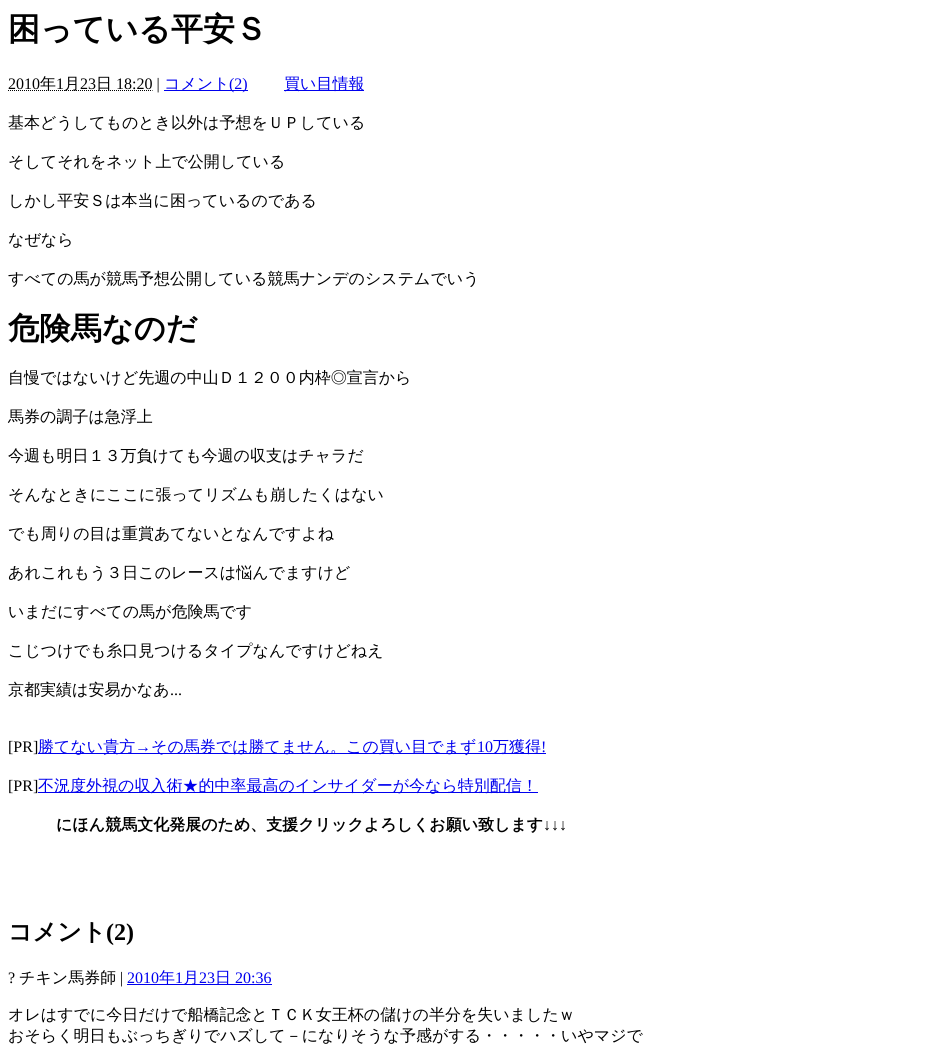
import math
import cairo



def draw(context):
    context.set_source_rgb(1, 1, 1)
    context.paint()
    context.new_path()
    context.move_to(8, 90.5)
    context.line_to(152.5, 90.5)
    context.set_source_rgb(0, 0, 0)
    context.set_line_width(1)
    context.set_dash([1, 1])
    context.stroke()
    context.set_source_rgb(0, 0, 238 / 255)
    context.rectangle(164, 90, 84, 1)
    context.fill()
    context.rectangle(284, 90, 80, 1)
    context.fill()
    context.rectangle(38, 753, 508, 1)
    context.fill()
    context.rectangle(38, 792, 500, 1)
    context.fill()
    context.rectangle(127, 984, 145, 1)
    context.fill()
    context.select_font_face("WenQuanYi Zen Hei", cairo.FontSlant.NORMAL, cairo.FontWeight.BOLD)
    context.set_font_size(32)
    context.set_source_rgb(0, 0, 0)
    context.move_to(8, 40)
    context.show_text("困っている平安Ｓ")
    context.select_font_face("Liberation Serif")
    context.set_font_size(16)
    context.move_to(8, 89)
    context.show_text("2010")
    context.select_font_face("WenQuanYi Zen Hei Medium")
    context.move_to(40, 89)
    context.show_text("年")
    context.select_font_face("Liberation Serif")
    context.move_to(56, 89)
    context.show_text("1")
    context.select_font_face("WenQuanYi Zen Hei Medium")
    context.move_to(64, 89)
    context.show_text("月")
    context.select_font_face("Liberation Serif")
    context.move_to(80, 89)
    context.show_text("23")
    context.select_font_face("WenQuanYi Zen Hei Medium")
    context.move_to(96, 89)
    context.show_text("日")
    context.select_font_face("Liberation Serif")
    context.move_to(116, 89)
    context.show_text("18:20 |")
    context.select_font_face("WenQuanYi Zen Hei Medium")
    context.set_source_rgb(0, 0, 238 / 255)
    context.move_to(164, 89)
    context.show_text("コメント")
    context.select_font_face("Liberation Serif")
    context.move_to(229, 89)
    context.show_text("(2)")
    context.select_font_face("WenQuanYi Zen Hei Medium")
    context.move_to(284, 89)
    context.show_text("買い目情報")
    context.set_source_rgb(0, 0, 0)
    context.move_to(8, 128)
    context.show_text("基本どうしてものとき以外は予想をＵＰしている")
    context.move_to(8, 167)
    context.show_text("そしてそれをネット上で公開している")
    context.move_to(8, 206)
    context.show_text("しかし平安Ｓは本当に困っているのである")
    context.move_to(8, 245)
    context.show_text("なぜなら")
    context.move_to(8, 284)
    context.show_text("すべての馬が競馬予想公開している競馬ナンデのシステムでいう")
    context.select_font_face("WenQuanYi Zen Hei", cairo.FontSlant.NORMAL, cairo.FontWeight.BOLD)
    context.set_font_size(31.25)
    context.move_to(8, 339)
    context.show_text("危険馬なのだ")
    context.select_font_face("WenQuanYi Zen Hei Medium")
    context.set_font_size(16)
    context.move_to(8, 383)
    context.show_text("自慢ではないけど先週の中山Ｄ１２００内枠◎宣言から")
    context.move_to(8, 422)
    context.show_text("馬券の調子は急浮上")
    context.move_to(8, 461)
    context.show_text("今週も明日１３万負けても今週の収支はチャラだ")
    context.move_to(8, 500)
    context.show_text("そんなときにここに張ってリズムも崩したくはない")
    context.move_to(8, 539)
    context.show_text("でも周りの目は重賞あてないとなんですよね")
    context.move_to(8, 578)
    context.show_text("あれこれもう３日このレースは悩んでますけど")
    context.move_to(8, 617)
    context.show_text("いまだにすべての馬が危険馬です")
    context.move_to(8, 656)
    context.show_text("こじつけでも糸口見つけるタイプなんですけどねえ")
    context.move_to(8, 695)
    context.show_text("京都実績は安易かなあ")
    context.select_font_face("Liberation Serif")
    context.move_to(170, 695)
    context.show_text("...")
    context.move_to(8, 752)
    context.show_text("[PR]")
    context.select_font_face("WenQuanYi Zen Hei Medium")
    context.set_source_rgb(0, 0, 238 / 255)
    context.move_to(38, 752)
    context.show_text("勝てない貴方")
    context.select_font_face("Liberation Serif")
    context.move_to(135, 752)
    context.show_text("→")
    context.select_font_face("WenQuanYi Zen Hei Medium")
    context.move_to(151, 752)
    context.show_text("その馬券では勝てません。この買い目でまず")
    context.select_font_face("Liberation Serif")
    context.move_to(477, 752)
    context.show_text("10")
    context.select_font_face("WenQuanYi Zen Hei Medium")
    context.move_to(493, 752)
    context.show_text("万獲得")
    context.select_font_face("Liberation Serif")
    context.move_to(541, 752)
    context.show_text("!")
    context.set_source_rgb(0, 0, 0)
    context.move_to(8, 791)
    context.show_text("[PR]")
    context.select_font_face("WenQuanYi Zen Hei Medium")
    context.set_source_rgb(0, 0, 238 / 255)
    context.move_to(38, 791)
    context.show_text("不況度外視の収入術★的中率最高のインサイダーが今なら特別配信！")
    context.select_font_face("WenQuanYi Zen Hei", cairo.FontSlant.NORMAL, cairo.FontWeight.BOLD)
    context.set_source_rgb(0, 0, 0)
    context.move_to(56, 830)
    context.show_text("にほん競馬文化発展のため、支援クリックよろしくお願い致します")
    context.select_font_face("Liberation Serif")
    context.move_to(543, 830)
    context.show_text("↓↓↓")
    context.select_font_face("WenQuanYi Zen Hei", cairo.FontSlant.NORMAL, cairo.FontWeight.BOLD)
    context.set_font_size(24)
    context.move_to(8, 940)
    context.show_text("コメント")
    context.select_font_face("Liberation Serif", cairo.FontSlant.NORMAL, cairo.FontWeight.BOLD)
    context.move_to(106, 940)
    context.show_text("(2)")
    context.select_font_face("Liberation Serif")
    context.set_font_size(16)
    context.move_to(8, 983)
    context.show_text("?")
    context.select_font_face("WenQuanYi Zen Hei Medium")
    context.move_to(19, 983)
    context.show_text("チキン馬券師")
    context.select_font_face("Liberation Serif")
    context.move_to(120, 983)
    context.show_text("|")
    context.set_source_rgb(0, 0, 238 / 255)
    context.move_to(127, 983)
    context.show_text("2010")
    context.select_font_face("WenQuanYi Zen Hei Medium")
    context.move_to(159, 983)
    context.show_text("年")
    context.select_font_face("Liberation Serif")
    context.move_to(175, 983)
    context.show_text("1")
    context.select_font_face("WenQuanYi Zen Hei Medium")
    context.move_to(183, 983)
    context.show_text("月")
    context.select_font_face("Liberation Serif")
    context.move_to(199, 983)
    context.show_text("23")
    context.select_font_face("WenQuanYi Zen Hei Medium")
    context.move_to(215, 983)
    context.show_text("日")
    context.select_font_face("Liberation Serif")
    context.move_to(235, 983)
    context.show_text("20:36")
    context.select_font_face("WenQuanYi Zen Hei Medium")
    context.set_source_rgb(0, 0, 0)
    context.move_to(8, 1020)
    context.show_text("オレはすでに今日だけで船橋記念とＴＣＫ女王杯の儲けの半分を失いましたｗ")
    context.move_to(8, 1041)
    context.show_text("おそらく明日もぶっちぎりでハズして－になりそうな予感がする・・・・・いやマジで")


surface = cairo.ImageSurface(cairo.Format.RGB24, 948, 1052)
context = cairo.Context(surface)
options = cairo.FontOptions()
options.set_hint_metrics(cairo.HintMetrics.OFF)
options.set_hint_style(cairo.HintStyle.NONE)
context.set_font_options(options)
context.set_miter_limit(4)
draw(context)
surface.write_to_png("out.png")
